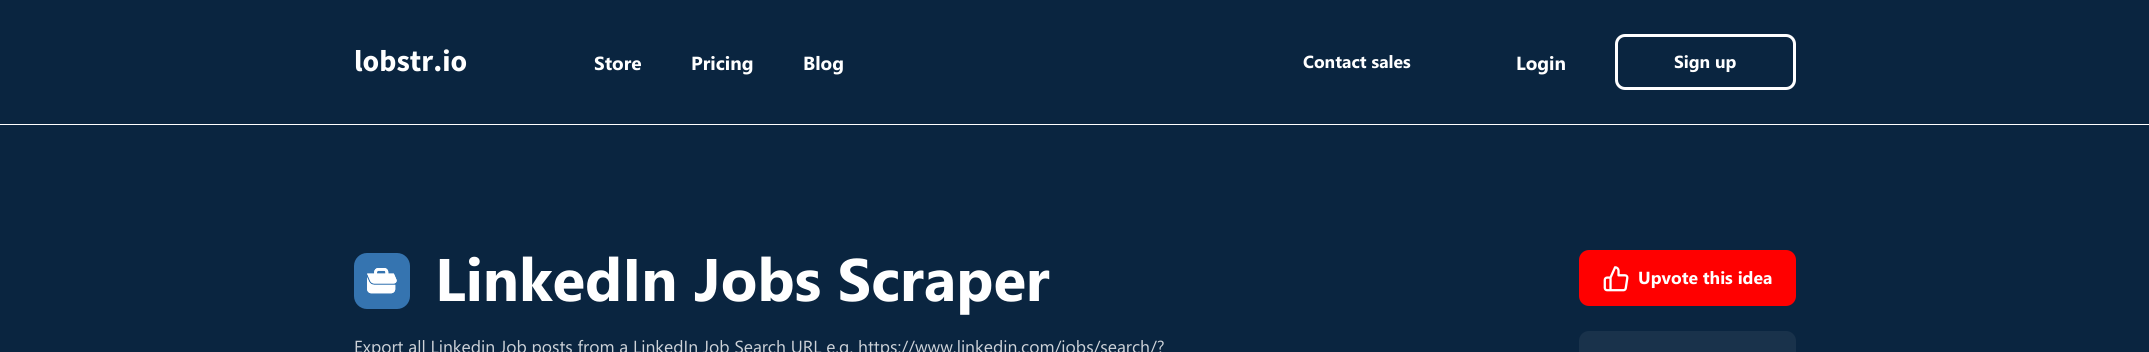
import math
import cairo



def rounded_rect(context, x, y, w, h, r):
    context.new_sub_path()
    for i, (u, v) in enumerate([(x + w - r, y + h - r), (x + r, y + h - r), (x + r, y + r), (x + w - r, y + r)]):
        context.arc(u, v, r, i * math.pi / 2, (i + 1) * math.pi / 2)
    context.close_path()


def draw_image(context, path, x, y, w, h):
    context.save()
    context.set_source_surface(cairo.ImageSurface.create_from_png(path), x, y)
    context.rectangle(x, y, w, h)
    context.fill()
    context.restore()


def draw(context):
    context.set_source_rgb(10 / 255, 37 / 255, 64 / 255)
    context.paint()
    context.set_source_rgb(1, 1, 1)
    context.rectangle(0, 124, 2149, 1)
    context.fill()
    rounded_rect(context, 1616.5, 35.5, 178, 53, 8.5)
    context.set_line_width(3)
    context.stroke()
    draw_image(context, "images/1.png", 354, 253, 56, 56)
    context.set_source_rgb(1, 0, 0)
    rounded_rect(context, 1579, 250, 217, 56, 10)
    context.fill()
    draw_image(context, "images/2.png", 1603, 266, 26, 26)
    context.set_source_rgb(25 / 255, 50 / 255, 75 / 255)
    rounded_rect(context, 1579, 331, 217, 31, 10)
    context.fill()
    context.select_font_face("Source Sans 3", cairo.FontSlant.NORMAL, cairo.FontWeight.BOLD)
    context.set_font_size(30)
    context.set_source_rgb(1, 1, 1)
    context.move_to(354, 71)
    context.show_text("lobstr.io")
    context.select_font_face("Segoe UI", cairo.FontSlant.NORMAL, cairo.FontWeight.BOLD)
    context.set_font_size(19)
    context.move_to(594, 70)
    context.show_text("Store")
    context.move_to(691, 70)
    context.show_text("Pricing")
    context.move_to(803, 70)
    context.show_text("Blog")
    context.set_font_size(17.5)
    context.move_to(1303, 68)
    context.show_text("Contact sales")
    context.set_font_size(19)
    context.move_to(1516, 70)
    context.show_text("Login")
    context.set_font_size(17.5)
    context.move_to(1674, 68)
    context.show_text("Sign up")
    context.set_font_size(60)
    context.move_to(435, 301)
    context.show_text("LinkedIn Jobs Scraper")
    context.select_font_face("Segoe UI")
    context.set_font_size(17.5)
    context.set_source_rgb(206 / 255, 211 / 255, 217 / 255)
    context.move_to(354, 353)
    context.show_text("Export all Linkedin Job posts from a LinkedIn Job Search URL e.g. https://www.linkedin.com/jobs/search/?")
    context.select_font_face("Segoe UI", cairo.FontSlant.NORMAL, cairo.FontWeight.BOLD)
    context.set_source_rgb(1, 1, 1)
    context.move_to(1638, 284)
    context.show_text("Upvote this idea")


surface = cairo.ImageSurface(cairo.Format.RGB24, 2149, 352)
context = cairo.Context(surface)
options = cairo.FontOptions()
options.set_hint_metrics(cairo.HintMetrics.OFF)
options.set_hint_style(cairo.HintStyle.NONE)
context.set_font_options(options)
context.set_miter_limit(4)
draw(context)
surface.write_to_png("out.png")
